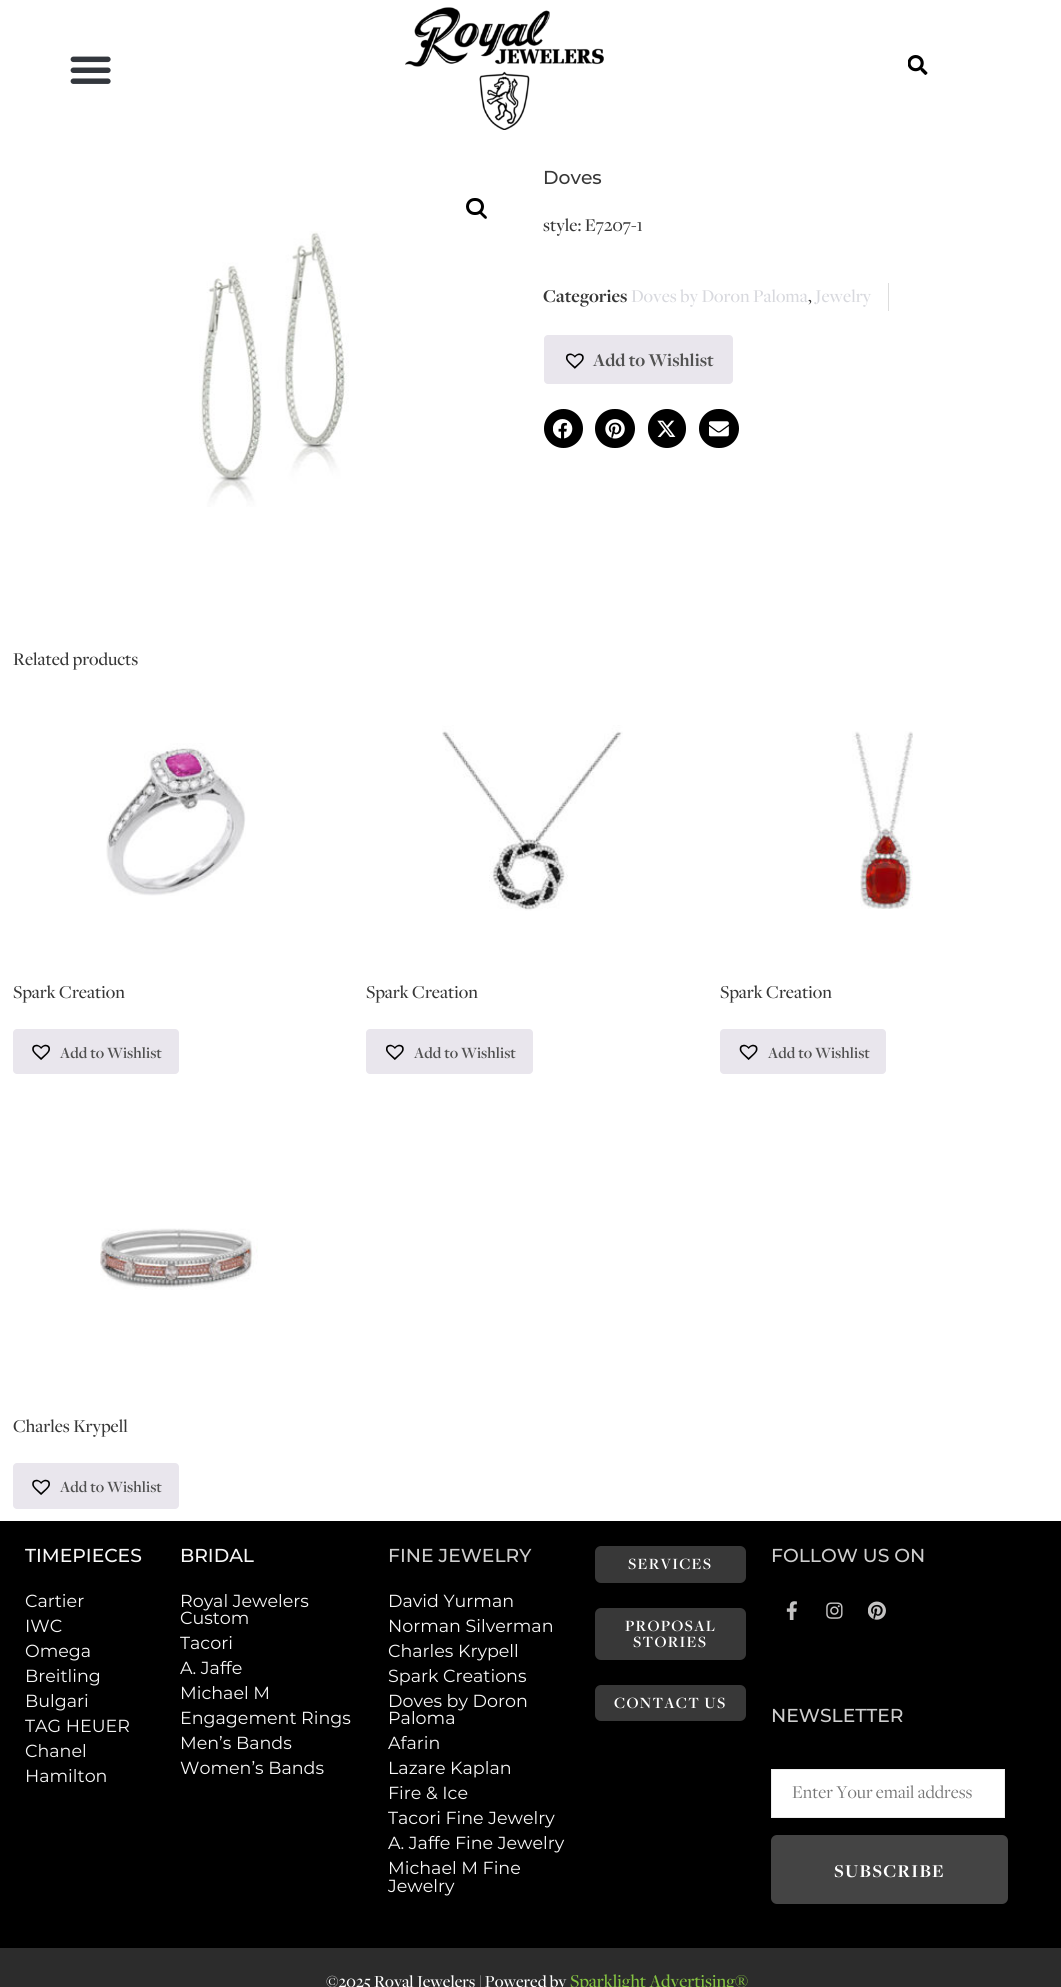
import math
import cairo



def draw_spaced(context, x, y, s, letter, word):
    context.move_to(x, y)
    for ch in s:
        context.show_text(ch)
        context.rel_move_to(letter + word * (ch == ' '), 0)


def rounded_rect(context, x, y, w, h, r):
    context.new_sub_path()
    for i, (u, v) in enumerate([(x + w - r, y + h - r), (x + r, y + h - r), (x + r, y + r), (x + w - r, y + r)]):
        context.arc(u, v, r, i * math.pi / 2, (i + 1) * math.pi / 2)
    context.close_path()


def draw_image(context, path, x, y, w, h):
    context.save()
    context.set_source_surface(cairo.ImageSurface.create_from_png(path), x, y)
    context.rectangle(x, y, w, h)
    context.fill()
    context.restore()


def draw(context):
    context.set_source_rgb(1, 1, 1)
    context.paint()
    draw_image(context, "images/1.png", 70, 56, 41, 28)
    draw_image(context, "images/2.png", 405, 7, 199, 123)
    draw_image(context, "images/3.png", 908, 55, 20, 20)
    rounded_rect(context, 467.5, 199.5, 15, 14, 7)
    context.set_source_rgb(0, 0, 0)
    context.set_line_width(3)
    context.stroke()
    context.new_path()
    context.move_to(479.5, 211.5)
    context.curve_to(481, 210, 483, 213.5, 484, 214)
    context.curve_to(485, 215, 488, 217, 486.5, 218.5)
    context.curve_to(485, 220, 483, 216.5, 482, 216)
    context.curve_to(481.5, 215, 478, 213, 479.5, 211.5)
    context.close_path()
    context.fill()
    draw_image(context, "images/4.png", 199, 231, 150, 276)
    context.set_source_rgb(221 / 255, 221 / 255, 221 / 255)
    context.rectangle(888, 283, 1, 28)
    context.fill()
    context.set_source_rgb(233 / 255, 230 / 255, 237 / 255)
    rounded_rect(context, 544, 335, 189, 49, 4)
    context.fill()
    draw_image(context, "images/5.png", 565, 353, 19, 16)
    context.set_source_rgb(0, 0, 0)
    context.arc(563.5, 428.5, 19.5, 0, 2 * math.pi)
    context.fill()
    gradient = cairo.LinearGradient(544, 428, 583, 428)
    gradient.add_color_stop_rgba(0, 0, 0, 0, 0.12)
    gradient.add_color_stop_rgba(1, 0, 0, 0, 0)
    context.set_source(gradient)
    context.arc(563.5, 428.5, 19.5, 0, 2 * math.pi)
    context.fill()
    draw_image(context, "images/6.png", 553, 419, 20, 20)
    context.set_source_rgb(0, 0, 0)
    rounded_rect(context, 595, 409, 40, 39, 19.5)
    context.fill()
    gradient = cairo.LinearGradient(595, 428, 635, 428)
    gradient.add_color_stop_rgba(0, 0, 0, 0, 0.12)
    gradient.add_color_stop_rgba(1, 0, 0, 0, 0)
    context.set_source(gradient)
    rounded_rect(context, 595, 409, 40, 39, 19.5)
    context.fill()
    draw_image(context, "images/7.png", 605, 419, 20, 20)
    context.set_source_rgb(0, 0, 0)
    rounded_rect(context, 648, 409, 38, 39, 19)
    context.fill()
    gradient = cairo.LinearGradient(648, 428, 686, 428)
    gradient.add_color_stop_rgba(0, 0, 0, 0, 0.12)
    gradient.add_color_stop_rgba(1, 0, 0, 0, 0)
    context.set_source(gradient)
    rounded_rect(context, 648, 409, 38, 39, 19)
    context.fill()
    draw_image(context, "images/8.png", 657, 420, 19, 17)
    context.set_source_rgb(0, 0, 0)
    rounded_rect(context, 699, 409, 40, 39, 19.5)
    context.fill()
    gradient = cairo.LinearGradient(699, 428, 739, 428)
    gradient.add_color_stop_rgba(0, 0, 0, 0, 0.12)
    gradient.add_color_stop_rgba(1, 0, 0, 0, 0)
    context.set_source(gradient)
    rounded_rect(context, 699, 409, 40, 39, 19.5)
    context.fill()
    draw_image(context, "images/9.png", 709, 421, 20, 16)
    draw_image(context, "images/10.png", 106, 743, 140, 153)
    context.set_source_rgb(233 / 255, 230 / 255, 237 / 255)
    rounded_rect(context, 13, 1029, 166, 45, 4)
    context.fill()
    draw_image(context, "images/11.png", 32, 1044, 18, 16)
    draw_image(context, "images/12.png", 442, 725, 181, 186)
    rounded_rect(context, 366, 1029, 167, 45, 4)
    context.fill()
    draw_image(context, "images/13.png", 386, 1044, 18, 16)
    draw_image(context, "images/14.png", 852, 731, 61, 178)
    rounded_rect(context, 720, 1029, 166, 45, 4)
    context.fill()
    draw_image(context, "images/15.png", 739, 1044, 19, 16)
    draw_image(context, "images/16.png", 100, 1228, 158, 62)
    rounded_rect(context, 13, 1463, 166, 46, 4)
    context.fill()
    draw_image(context, "images/11.png", 32, 1479, 18, 16)
    context.set_source_rgb(0, 0, 0)
    context.rectangle(0, 1521, 1061, 427)
    context.fill()
    context.set_source_rgb(56 / 255, 56 / 255, 56 / 255)
    rounded_rect(context, 595, 1546, 151, 37, 6)
    context.fill()
    rounded_rect(context, 595, 1608, 151, 52, 6)
    context.fill()
    rounded_rect(context, 595, 1685, 151, 36, 6)
    context.fill()
    draw_image(context, "images/17.png", 786, 1601, 11, 19)
    draw_image(context, "images/18.png", 826, 1602, 17, 17)
    draw_image(context, "images/19.png", 868, 1601, 18, 19)
    context.set_source_rgb(1, 1, 1)
    context.rectangle(771.5, 1769.5, 233, 48)
    context.fill_preserve()
    context.set_source_rgb(238 / 255, 238 / 255, 238 / 255)
    context.set_line_width(1)
    context.stroke()
    context.set_source_rgb(68 / 255, 68 / 255, 68 / 255)
    rounded_rect(context, 771, 1835, 237, 69, 6)
    context.fill()
    context.set_source_rgb(44 / 255, 44 / 255, 44 / 255)
    context.rectangle(0, 1948, 1061, 39)
    context.fill()
    context.select_font_face("Montserrat Medium")
    context.set_font_size(18.75)
    context.set_source_rgb(56 / 255, 56 / 255, 56 / 255)
    context.move_to(543, 184)
    context.show_text("Doves")
    context.select_font_face("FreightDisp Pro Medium")
    context.move_to(543, 231)
    context.show_text("style: E7207-1")
    context.select_font_face("FreightDisp Pro", cairo.FontSlant.NORMAL, cairo.FontWeight.BOLD)
    context.move_to(543, 302)
    context.show_text("Categories")
    context.select_font_face("FreightDisp Pro Medium")
    context.set_source_rgb(216 / 255, 217 / 255, 222 / 255)
    context.move_to(631, 302)
    context.show_text("Doves by Doron Paloma")
    context.set_source_rgb(56 / 255, 56 / 255, 56 / 255)
    context.move_to(808, 302)
    context.show_text(",")
    context.set_source_rgb(216 / 255, 217 / 255, 222 / 255)
    context.move_to(815, 302)
    context.show_text("Jewelry")
    context.select_font_face("FreightDisp Pro", cairo.FontSlant.NORMAL, cairo.FontWeight.BOLD)
    context.set_source_rgb(81 / 255, 81 / 255, 81 / 255)
    context.move_to(593, 366)
    context.show_text("Add to Wishlist")
    context.select_font_face("FreightDisp Pro Medium")
    context.set_source_rgb(56 / 255, 56 / 255, 56 / 255)
    context.move_to(13, 665)
    context.show_text("Related products")
    context.move_to(13, 998)
    context.show_text("Spark Creation")
    context.select_font_face("FreightDisp Pro SemiBold")
    context.set_font_size(16.25)
    context.set_source_rgb(81 / 255, 81 / 255, 81 / 255)
    context.move_to(60, 1058)
    context.show_text("Add to Wishlist")
    context.select_font_face("FreightDisp Pro Medium")
    context.set_font_size(18.75)
    context.set_source_rgb(56 / 255, 56 / 255, 56 / 255)
    context.move_to(366, 998)
    context.show_text("Spark Creation")
    context.select_font_face("FreightDisp Pro SemiBold")
    context.set_font_size(16.25)
    context.set_source_rgb(81 / 255, 81 / 255, 81 / 255)
    context.move_to(414, 1058)
    context.show_text("Add to Wishlist")
    context.select_font_face("FreightDisp Pro Medium")
    context.set_font_size(18.75)
    context.set_source_rgb(56 / 255, 56 / 255, 56 / 255)
    context.move_to(720, 998)
    context.show_text("Spark Creation")
    context.select_font_face("FreightDisp Pro SemiBold")
    context.set_font_size(16.25)
    context.set_source_rgb(81 / 255, 81 / 255, 81 / 255)
    context.move_to(768, 1058)
    context.show_text("Add to Wishlist")
    context.select_font_face("FreightDisp Pro Medium")
    context.set_font_size(18.75)
    context.set_source_rgb(56 / 255, 56 / 255, 56 / 255)
    context.move_to(13, 1432)
    context.show_text("Charles Krypell")
    context.select_font_face("FreightDisp Pro SemiBold")
    context.set_font_size(16.25)
    context.set_source_rgb(81 / 255, 81 / 255, 81 / 255)
    context.move_to(60, 1492)
    context.show_text("Add to Wishlist")
    context.select_font_face("Montserrat Medium")
    context.set_font_size(18.75)
    context.set_source_rgb(248 / 255, 248 / 255, 248 / 255)
    context.move_to(25, 1562)
    context.show_text("TIMEPIECES")
    context.select_font_face("Montserrat")
    context.set_font_size(17.5)
    context.move_to(25, 1607)
    context.show_text("Cartier")
    context.move_to(25, 1632)
    context.show_text("IWC")
    context.move_to(25, 1657)
    context.show_text("Omega")
    context.move_to(25, 1682)
    context.show_text("Breitling")
    context.move_to(25, 1707)
    context.show_text("Bulgari")
    context.move_to(25, 1732)
    context.show_text("TAG HEUER")
    context.move_to(25, 1757)
    context.show_text("Chanel")
    context.move_to(25, 1782)
    context.show_text("Hamilton")
    context.select_font_face("Montserrat Medium")
    context.set_font_size(18.75)
    context.move_to(180, 1562)
    context.show_text("BRIDAL")
    context.select_font_face("Montserrat")
    context.set_font_size(17.5)
    context.move_to(180, 1607)
    context.show_text("Royal Jewelers")
    context.move_to(180, 1624)
    context.show_text("Custom")
    context.move_to(180, 1649)
    context.show_text("Tacori")
    context.move_to(180, 1674)
    context.show_text("A. Jaffe")
    context.move_to(180, 1699)
    context.show_text("Michael M")
    context.move_to(180, 1724)
    context.show_text("Engagement Rings")
    context.move_to(180, 1749)
    context.show_text("Men’s Bands")
    context.move_to(180, 1774)
    context.show_text("Women’s Bands")
    context.select_font_face("Montserrat Medium")
    context.set_font_size(18.75)
    context.set_source_rgb(206 / 255, 206 / 255, 206 / 255)
    context.move_to(388, 1562)
    context.show_text("FINE JEWELRY")
    context.select_font_face("Montserrat")
    context.set_font_size(17.5)
    context.set_source_rgb(248 / 255, 248 / 255, 248 / 255)
    context.move_to(388, 1607)
    context.show_text("David Yurman")
    context.move_to(388, 1632)
    context.show_text("Norman Silverman")
    context.move_to(388, 1657)
    context.show_text("Charles Krypell")
    context.move_to(388, 1682)
    context.show_text("Spark Creations")
    context.move_to(388, 1707)
    context.show_text("Doves by Doron")
    context.move_to(388, 1724)
    context.show_text("Paloma")
    context.move_to(388, 1749)
    context.show_text("Afarin")
    context.move_to(388, 1774)
    context.show_text("Lazare Kaplan")
    context.move_to(388, 1799)
    context.show_text("Fire & Ice")
    context.move_to(388, 1824)
    context.show_text("Tacori Fine Jewelry")
    context.move_to(388, 1849)
    context.show_text("A. Jaffe Fine Jewelry")
    context.move_to(388, 1874)
    context.show_text("Michael M Fine")
    context.move_to(388, 1892)
    context.show_text("Jewelry")
    context.select_font_face("FreightDisp Pro SemiBold")
    context.set_font_size(16.25)
    context.set_source_rgb(1, 1, 1)
    draw_spaced(context, 628, 1569, "SERVICES", 1.25, 0)
    draw_spaced(context, 625, 1631, "PROPOSAL", 1.25, 0)
    draw_spaced(context, 633, 1647, "STORIES", 1.25, 0)
    draw_spaced(context, 614, 1708, "CONTACT US", 1.25, 0)
    context.select_font_face("Montserrat Medium")
    context.set_font_size(18.75)
    context.set_source_rgb(206 / 255, 206 / 255, 206 / 255)
    context.move_to(771, 1562)
    context.show_text("FOLLOW US ON")
    context.move_to(771, 1722)
    context.show_text("NEWSLETTER")
    context.select_font_face("FreightDisp Pro")
    context.set_source_rgb(117 / 255, 117 / 255, 117 / 255)
    context.move_to(792, 1798)
    context.show_text("Enter Your email address")
    context.select_font_face("FreightDisp Pro", cairo.FontSlant.NORMAL, cairo.FontWeight.BOLD)
    context.set_source_rgb(1, 1, 1)
    draw_spaced(context, 834, 1877, "SUBSCRIBE", 1.25, 0)
    context.select_font_face("FreightDisp Pro Medium")
    context.set_font_size(17.5)
    context.move_to(326, 1987)
    context.show_text("©2025 Royal Jewelers | Powered by")
    context.set_font_size(18.75)
    context.set_source_rgb(133 / 255, 196 / 255, 65 / 255)
    context.move_to(570, 1987)
    context.show_text("Sparklight Advertising®")


surface = cairo.ImageSurface(cairo.Format.RGB24, 1061, 1987)
context = cairo.Context(surface)
options = cairo.FontOptions()
options.set_hint_metrics(cairo.HintMetrics.OFF)
options.set_hint_style(cairo.HintStyle.NONE)
context.set_font_options(options)
context.set_miter_limit(4)
draw(context)
surface.write_to_png("out.png")
